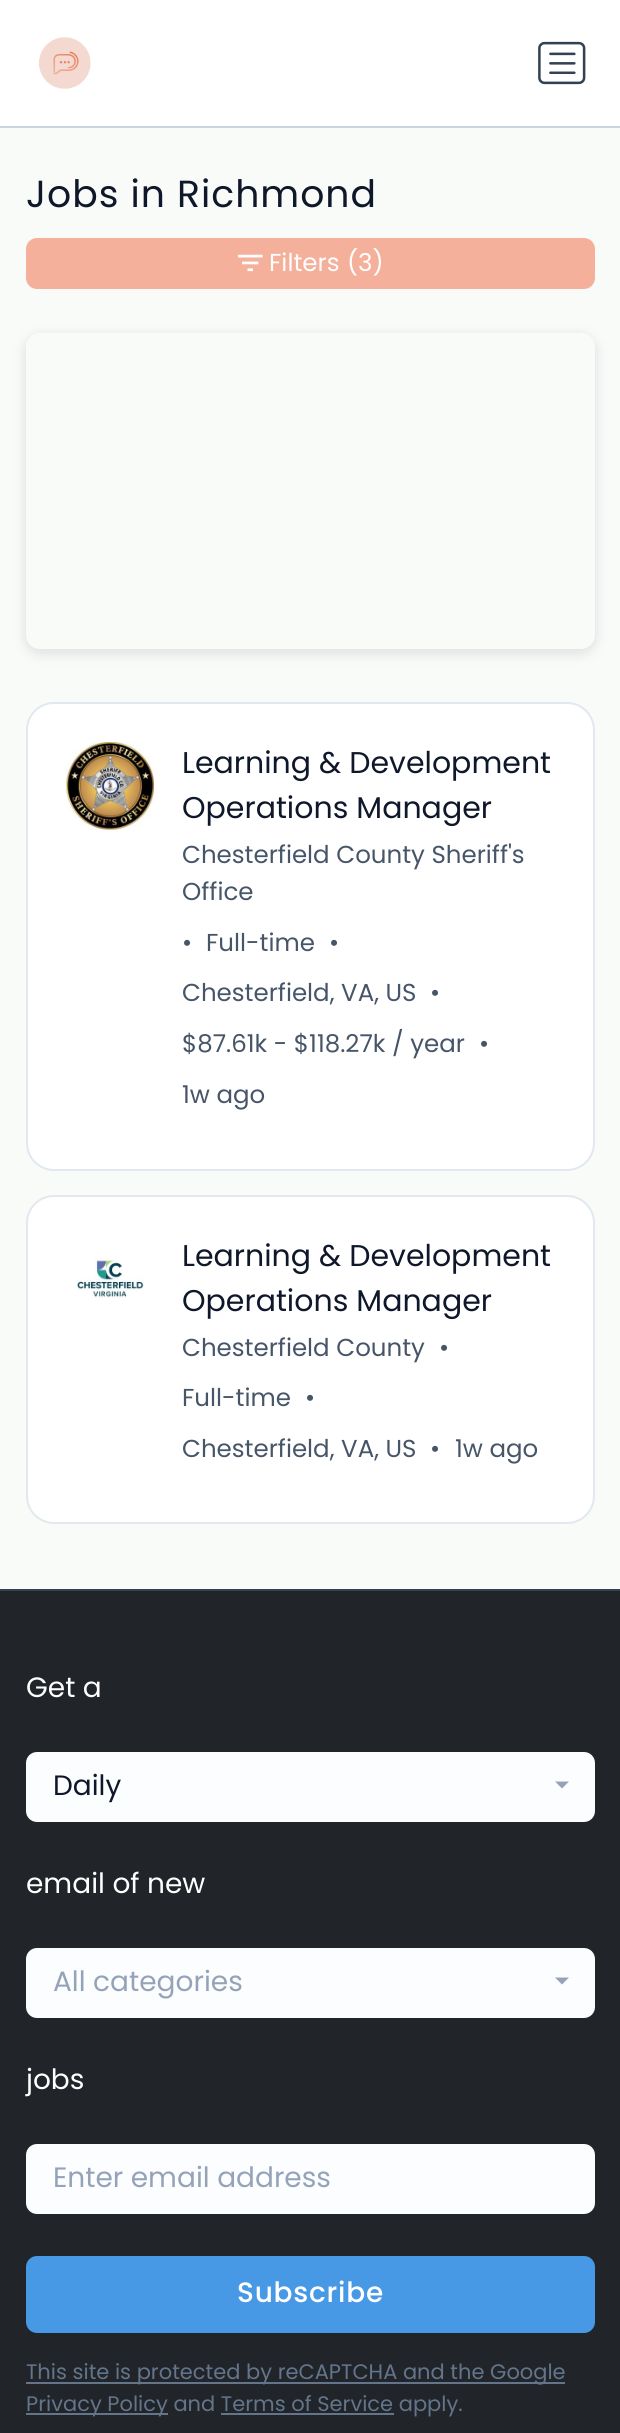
import math
import cairo



def draw_spaced(context, x, y, s, letter, word):
    context.move_to(x, y)
    for ch in s:
        context.show_text(ch)
        context.rel_move_to(letter + word * (ch == ' '), 0)


def rounded_rect(context, x, y, w, h, r):
    context.new_sub_path()
    for i, (u, v) in enumerate([(x + w - r, y + h - r), (x + r, y + h - r), (x + r, y + r), (x + w - r, y + r)]):
        context.arc(u, v, r, i * math.pi / 2, (i + 1) * math.pi / 2)
    context.close_path()


def draw_shadow(context, x, y, w, h, r, blur, alpha):
    context.push_group_with_content(cairo.Content.ALPHA)
    context.set_operator(cairo.Operator.SOURCE)
    for i in range(15, -16, -2):
        e = blur * i / 6
        if min(w, h) + 2 * e > 0:
            context.set_source_rgba(0, 0, 0, alpha * math.erfc((i - 1) / 8.5) / 2)
            rounded_rect(context, x - e, y - e, w + 2 * e, h + 2 * e, max(0, min(r + e + blur * .6, min(w, h) / 2 + e)))
            context.fill()
    context.mask(context.pop_group())


def draw_image(context, path, x, y, w, h):
    context.save()
    context.set_source_surface(cairo.ImageSurface.create_from_png(path), x, y)
    context.rectangle(x, y, w, h)
    context.fill()
    context.restore()


def draw(context):
    context.set_source_rgb(249 / 255, 251 / 255, 249 / 255)
    context.paint()
    context.set_source_rgb(1, 1, 1)
    context.rectangle(0, 0, 620, 126)
    context.fill()
    context.set_source_rgb(203 / 255, 213 / 255, 225 / 255)
    context.rectangle(0, 126, 620, 2)
    context.fill()
    draw_image(context, "images/1.png", 39, 37, 52, 52)
    draw_image(context, "images/2.png", 538, 41, 48, 44)
    context.set_source_rgb(244 / 255, 176 / 255, 154 / 255)
    rounded_rect(context, 27, 239, 567, 49, 10)
    context.fill_preserve()
    context.stroke()
    draw_image(context, "images/3.png", 238, 254, 25, 18)
    context.save()
    context.set_fill_rule(cairo.FillRule.EVEN_ODD)
    context.new_path()
    context.move_to(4, 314)
    context.line_to(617, 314)
    context.line_to(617, 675)
    context.line_to(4, 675)
    context.close_path()
    context.move_to(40, 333)
    context.line_to(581, 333)
    context.curve_to(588.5, 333, 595, 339.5, 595, 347)
    context.line_to(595, 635)
    context.curve_to(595, 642.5, 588.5, 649, 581, 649)
    context.line_to(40, 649)
    context.curve_to(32.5, 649, 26, 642.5, 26, 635)
    context.line_to(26, 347)
    context.curve_to(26, 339.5, 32.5, 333, 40, 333)
    context.close_path()
    context.clip()
    context.set_source_rgb(63 / 255, 69 / 255, 81 / 255)
    draw_shadow(context, 26, 336, 569, 317, 14, 7, 0.16)
    context.restore()
    context.set_source_rgb(1, 1, 1)
    rounded_rect(context, 27, 703, 567, 467, 27)
    context.fill_preserve()
    context.set_source_rgb(226 / 255, 232 / 255, 240 / 255)
    context.stroke()
    draw_image(context, "images/4.png", 66, 742, 88, 88)
    context.set_source_rgb(1, 1, 1)
    rounded_rect(context, 27, 1196, 567, 327, 27)
    context.fill_preserve()
    context.set_source_rgb(226 / 255, 232 / 255, 240 / 255)
    context.stroke()
    draw_image(context, "images/5.png", 76, 1255, 68, 43)
    context.set_source_rgb(33 / 255, 37 / 255, 41 / 255)
    context.rectangle(0, 1591, 620, 842)
    context.fill()
    context.set_source_rgb(51 / 255, 65 / 255, 85 / 255)
    context.rectangle(0, 1589, 620, 2)
    context.fill()
    context.set_source_rgb(252 / 255, 253 / 255, 1)
    rounded_rect(context, 27, 1753, 567, 68, 10)
    context.fill_preserve()
    context.stroke()
    context.set_source_rgb(148 / 255, 163 / 255, 184 / 255)
    context.new_path()
    context.move_to(555, 1781.5)
    context.line_to(569, 1781.5)
    context.line_to(562, 1788.5)
    context.close_path()
    context.fill()
    context.set_source_rgb(252 / 255, 253 / 255, 1)
    rounded_rect(context, 27, 1949, 567, 68, 10)
    context.fill_preserve()
    context.stroke()
    context.set_source_rgb(148 / 255, 163 / 255, 184 / 255)
    context.new_path()
    context.move_to(555, 1977.5)
    context.line_to(569, 1977.5)
    context.line_to(562, 1984.5)
    context.close_path()
    context.fill()
    context.set_source_rgb(252 / 255, 253 / 255, 1)
    rounded_rect(context, 27, 2145, 567, 68, 10)
    context.fill_preserve()
    context.stroke()
    context.set_source_rgb(71 / 255, 153 / 255, 229 / 255)
    rounded_rect(context, 27, 2257, 567, 75, 10)
    context.fill_preserve()
    context.stroke()
    context.set_source_rgb(100 / 255, 116 / 255, 139 / 255)
    context.rectangle(26, 2382, 539, 2)
    context.fill()
    context.rectangle(26, 2413, 142, 2)
    context.fill()
    context.rectangle(221, 2413, 173, 2)
    context.fill()
    context.select_font_face("Poppins")
    context.set_font_size(37.75)
    context.set_source_rgb(15 / 255, 23 / 255, 42 / 255)
    draw_spaced(context, 26, 207, "Jobs in Richmond", 1, 0)
    context.set_font_size(24.5)
    context.set_source_rgb(1, 1, 1)
    context.move_to(269, 271)
    context.show_text("Filters")
    context.move_to(347, 271)
    context.show_text("(3)")
    context.set_font_size(30)
    context.set_source_rgb(15 / 255, 23 / 255, 42 / 255)
    context.move_to(182, 773)
    context.show_text("Learning & Development")
    context.move_to(182, 818)
    context.show_text("Operations Manager")
    context.set_font_size(24.5)
    context.set_source_rgb(71 / 255, 85 / 255, 105 / 255)
    context.move_to(182, 863)
    context.show_text("Chesterfield County Sheriff's")
    context.move_to(182, 900)
    context.show_text("Office")
    context.move_to(182, 951)
    context.show_text("•")
    context.move_to(206, 951)
    context.show_text("Full-time")
    context.move_to(329, 951)
    context.show_text("•")
    context.move_to(182, 1001)
    context.show_text("Chesterfield, VA, US")
    context.move_to(430, 1001)
    context.show_text("•")
    context.move_to(182, 1052)
    context.show_text("$87.61k - $118.27k / year")
    context.move_to(479, 1052)
    context.show_text("•")
    context.move_to(182, 1103)
    context.show_text("1w ago")
    context.set_font_size(30)
    context.set_source_rgb(15 / 255, 23 / 255, 42 / 255)
    context.move_to(182, 1266)
    context.show_text("Learning & Development")
    context.move_to(182, 1311)
    context.show_text("Operations Manager")
    context.set_font_size(24.5)
    context.set_source_rgb(71 / 255, 85 / 255, 105 / 255)
    context.move_to(182, 1356)
    context.show_text("Chesterfield County")
    context.move_to(439, 1356)
    context.show_text("•")
    context.move_to(182, 1406)
    context.show_text("Full-time")
    context.move_to(305, 1406)
    context.show_text("•")
    context.move_to(182, 1457)
    context.show_text("Chesterfield, VA, US")
    context.move_to(430, 1457)
    context.show_text("•")
    context.move_to(455, 1457)
    context.show_text("1w ago")
    context.set_font_size(28)
    context.set_source_rgb(1, 1, 1)
    context.move_to(26, 1697)
    context.show_text("Get a")
    context.set_source_rgb(15 / 255, 23 / 255, 42 / 255)
    context.move_to(53, 1795)
    context.show_text("Daily")
    context.set_source_rgb(1, 1, 1)
    context.move_to(26, 1893)
    context.show_text("email of new")
    context.set_source_rgb(148 / 255, 163 / 255, 184 / 255)
    context.move_to(53, 1991)
    context.show_text("All categories")
    context.set_source_rgb(1, 1, 1)
    context.move_to(26, 2089)
    context.show_text("jobs")
    context.set_source_rgb(148 / 255, 163 / 255, 184 / 255)
    context.move_to(53, 2187)
    context.show_text("Enter email address")
    context.select_font_face("Poppins Medium")
    context.set_source_rgb(1, 1, 1)
    draw_spaced(context, 237, 2302, "Subscribe", 0.75, 0)
    context.select_font_face("Poppins")
    context.set_font_size(21)
    context.set_source_rgb(100 / 255, 116 / 255, 139 / 255)
    context.move_to(26, 2379)
    context.show_text("This site is protected by reCAPTCHA and the Google")
    context.move_to(26, 2411)
    context.show_text("Privacy Policy and Terms of Service apply.")


surface = cairo.ImageSurface(cairo.Format.RGB24, 620, 2433)
context = cairo.Context(surface)
options = cairo.FontOptions()
options.set_hint_metrics(cairo.HintMetrics.OFF)
options.set_hint_style(cairo.HintStyle.NONE)
context.set_font_options(options)
context.set_miter_limit(4)
draw(context)
surface.write_to_png("out.png")
